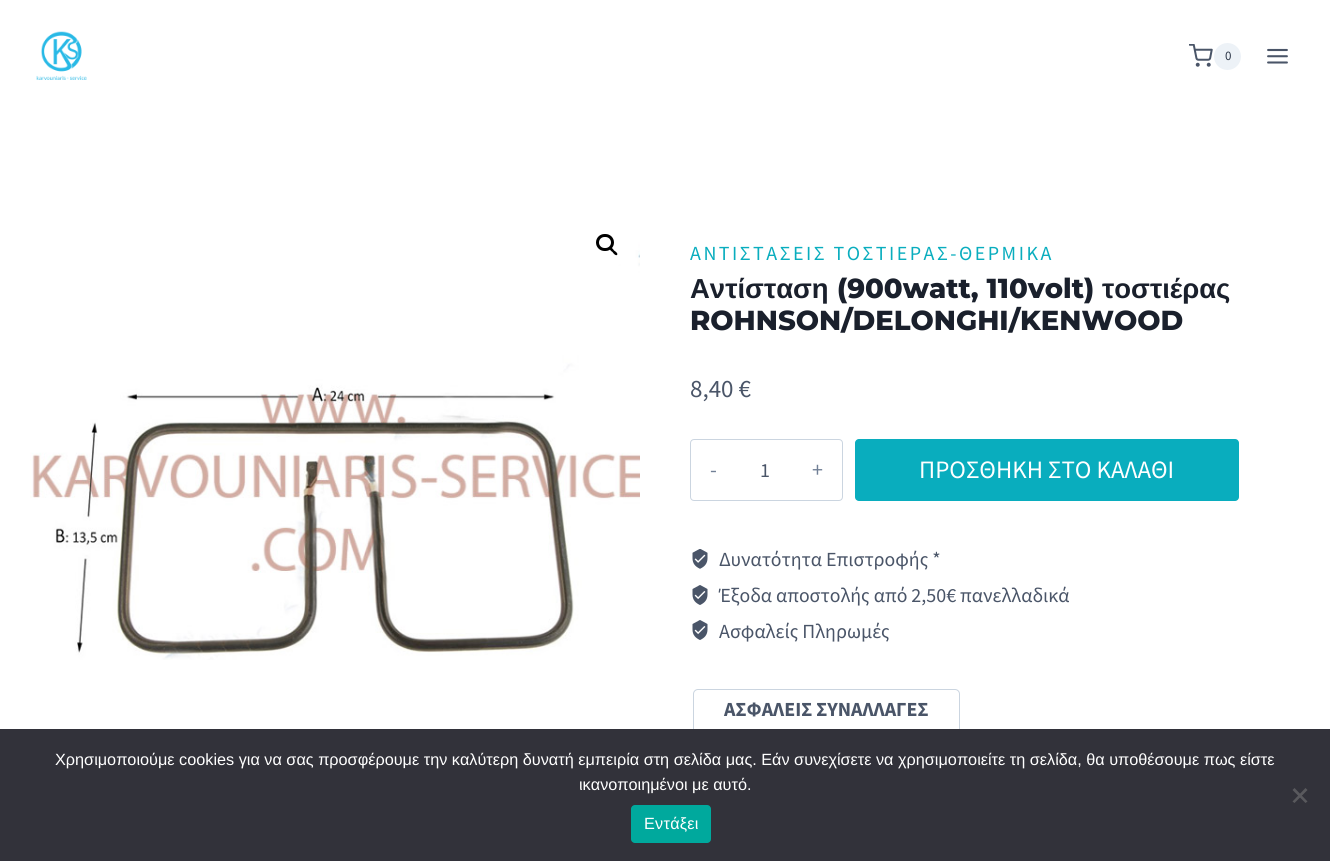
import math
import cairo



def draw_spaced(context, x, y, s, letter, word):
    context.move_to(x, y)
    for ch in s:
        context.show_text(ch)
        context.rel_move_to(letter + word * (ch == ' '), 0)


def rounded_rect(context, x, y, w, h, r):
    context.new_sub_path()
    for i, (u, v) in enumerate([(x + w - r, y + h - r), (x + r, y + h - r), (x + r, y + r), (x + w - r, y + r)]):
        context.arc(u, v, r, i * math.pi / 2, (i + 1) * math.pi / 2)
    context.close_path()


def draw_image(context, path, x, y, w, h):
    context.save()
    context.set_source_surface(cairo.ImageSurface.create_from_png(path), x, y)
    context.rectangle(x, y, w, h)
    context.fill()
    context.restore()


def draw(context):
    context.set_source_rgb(1, 1, 1)
    context.paint()
    draw_image(context, "images/1.png", 36, 31, 51, 49)
    draw_image(context, "images/2.png", 1189, 44, 24, 23)
    context.set_source_rgb(237 / 255, 242 / 255, 247 / 255)
    context.arc(1227.5, 56.5, 13.5, 0, 2 * math.pi)
    context.fill()
    draw_image(context, "images/3.png", 1267, 48, 21, 16)
    draw_image(context, "images/4.png", 30, 231, 610, 429)
    context.set_source_rgb(1, 1, 1)
    context.arc(607.5, 245.5, 22.5, 0, 2 * math.pi)
    context.fill()
    rounded_rect(context, 597.5, 235.5, 15, 14, 7)
    context.set_source_rgb(0, 0, 0)
    context.set_line_width(3)
    context.stroke()
    context.new_path()
    context.move_to(610, 247.5)
    context.curve_to(611, 246.5, 613.5, 249.5, 614, 250.5)
    context.curve_to(615, 251, 618.5, 253.5, 617, 255)
    context.curve_to(615.5, 256, 613, 253, 612.5, 252)
    context.curve_to(611.5, 251.5, 608.5, 249, 610, 247.5)
    context.close_path()
    context.fill()
    rounded_rect(context, 690.5, 439.5, 152, 61, 3.5)
    context.set_source_rgb(203 / 255, 213 / 255, 224 / 255)
    context.set_line_width(1)
    context.stroke()
    context.set_source_rgb(9 / 255, 173 / 255, 190 / 255)
    rounded_rect(context, 855, 439, 384, 62, 4)
    context.fill()
    draw_image(context, "images/5.png", 692, 549, 16, 20)
    draw_image(context, "images/6.png", 692, 585, 16, 20)
    draw_image(context, "images/6.png", 692, 620, 16, 20)
    rounded_rect(context, 693.5, 689.5, 266, 110, 4.5)
    context.set_source_rgb(203 / 255, 213 / 255, 224 / 255)
    context.stroke()
    context.set_source_rgb(50 / 255, 50 / 255, 58 / 255)
    context.rectangle(0, 729, 1330, 132)
    context.fill()
    context.set_source_rgb(89 / 255, 89 / 255, 93 / 255)
    context.new_path()
    context.move_to(1305.5, 788)
    context.line_to(1307.5, 790)
    context.line_to(1294.5, 803)
    context.line_to(1292.5, 801.5)
    context.close_path()
    context.fill()
    context.new_path()
    context.move_to(1292.5, 790)
    context.line_to(1294.5, 788)
    context.line_to(1307.5, 801.5)
    context.line_to(1305.5, 803)
    context.close_path()
    context.fill()
    context.set_source_rgb(0, 169 / 255, 157 / 255)
    rounded_rect(context, 631, 805, 80, 38, 4)
    context.fill()
    context.select_font_face("Source Sans Pro")
    context.set_font_size(13)
    context.set_source_rgb(45 / 255, 55 / 255, 72 / 255)
    context.move_to(1225, 60)
    context.show_text("0")
    context.set_font_size(20)
    context.set_source_rgb(9 / 255, 173 / 255, 190 / 255)
    draw_spaced(context, 690, 260, "ΑΝΤΙΣΤΑΣΕΙΣ ΤΟΣΤΙΕΡΑΣ-ΘΕΡΜΙΚΑ", 2.5, 0)
    context.select_font_face("Liberation Sans", cairo.FontSlant.NORMAL, cairo.FontWeight.BOLD)
    context.set_font_size(27.5)
    context.set_source_rgb(26 / 255, 32 / 255, 44 / 255)
    context.move_to(690, 298)
    context.show_text("Αντίσταση")
    context.select_font_face("Montserrat ExtraBold")
    context.move_to(837, 298)
    context.show_text("(900watt, 110volt)")
    context.select_font_face("Liberation Sans", cairo.FontSlant.NORMAL, cairo.FontWeight.BOLD)
    context.move_to(1102, 298)
    context.show_text("τοστιέρας")
    context.select_font_face("Montserrat ExtraBold")
    context.move_to(690, 330)
    context.show_text("ROHNSON/DELONGHI/KENWOOD")
    context.select_font_face("Source Sans Pro")
    context.set_font_size(25)
    context.set_source_rgb(74 / 255, 85 / 255, 104 / 255)
    context.move_to(690, 397)
    context.show_text("8,40 €")
    context.set_font_size(22)
    context.set_source_rgb(113 / 255, 128 / 255, 150 / 255)
    context.move_to(710, 477)
    context.show_text("-")
    context.set_font_size(20)
    context.set_source_rgb(74 / 255, 85 / 255, 104 / 255)
    context.move_to(760, 477)
    context.show_text("1")
    context.set_font_size(22)
    context.set_source_rgb(113 / 255, 128 / 255, 150 / 255)
    context.move_to(812, 477)
    context.show_text("+")
    context.set_font_size(25)
    context.set_source_rgb(1, 1, 1)
    context.move_to(919, 478)
    context.show_text("ΠΡΟΣΘΗΚΗ ΣΤΟ ΚΑΛΑΘΙ")
    context.set_font_size(20)
    context.set_source_rgb(74 / 255, 85 / 255, 104 / 255)
    context.move_to(719, 566)
    context.show_text("Δυνατότητα Επιστροφής *")
    context.move_to(719, 602)
    context.show_text("Έξοδα αποστολής από 2,50€ πανελλαδικά")
    context.move_to(719, 638)
    context.show_text("Ασφαλείς Πληρωμές")
    context.select_font_face("Source Sans Pro", cairo.FontSlant.NORMAL, cairo.FontWeight.BOLD)
    context.move_to(724, 716)
    context.show_text("ΑΣΦΑΛΕΙΣ ΣΥΝΑΛΛΑΓΕΣ")
    context.select_font_face("Liberation Sans")
    context.set_font_size(16.25)
    context.set_source_rgb(1, 1, 1)
    context.move_to(55, 765)
    context.show_text("Χρησιμοποιούμε cookies για να σας προσφέρουμε την καλύτερη δυνατή εμπειρία στη σελίδα μας. Εάν συνεχίσετε να χρησιμοποιείτε τη σελίδα, θα υποθέσουμε πως είστε")
    context.move_to(579, 790)
    context.show_text("ικανοποιημένοι με αυτό.")
    draw_spaced(context, 644, 829, "Εντάξει", 0.25, 0)


surface = cairo.ImageSurface(cairo.Format.RGB24, 1330, 861)
context = cairo.Context(surface)
options = cairo.FontOptions()
options.set_hint_metrics(cairo.HintMetrics.OFF)
options.set_hint_style(cairo.HintStyle.NONE)
context.set_font_options(options)
context.set_miter_limit(4)
draw(context)
surface.write_to_png("out.png")
